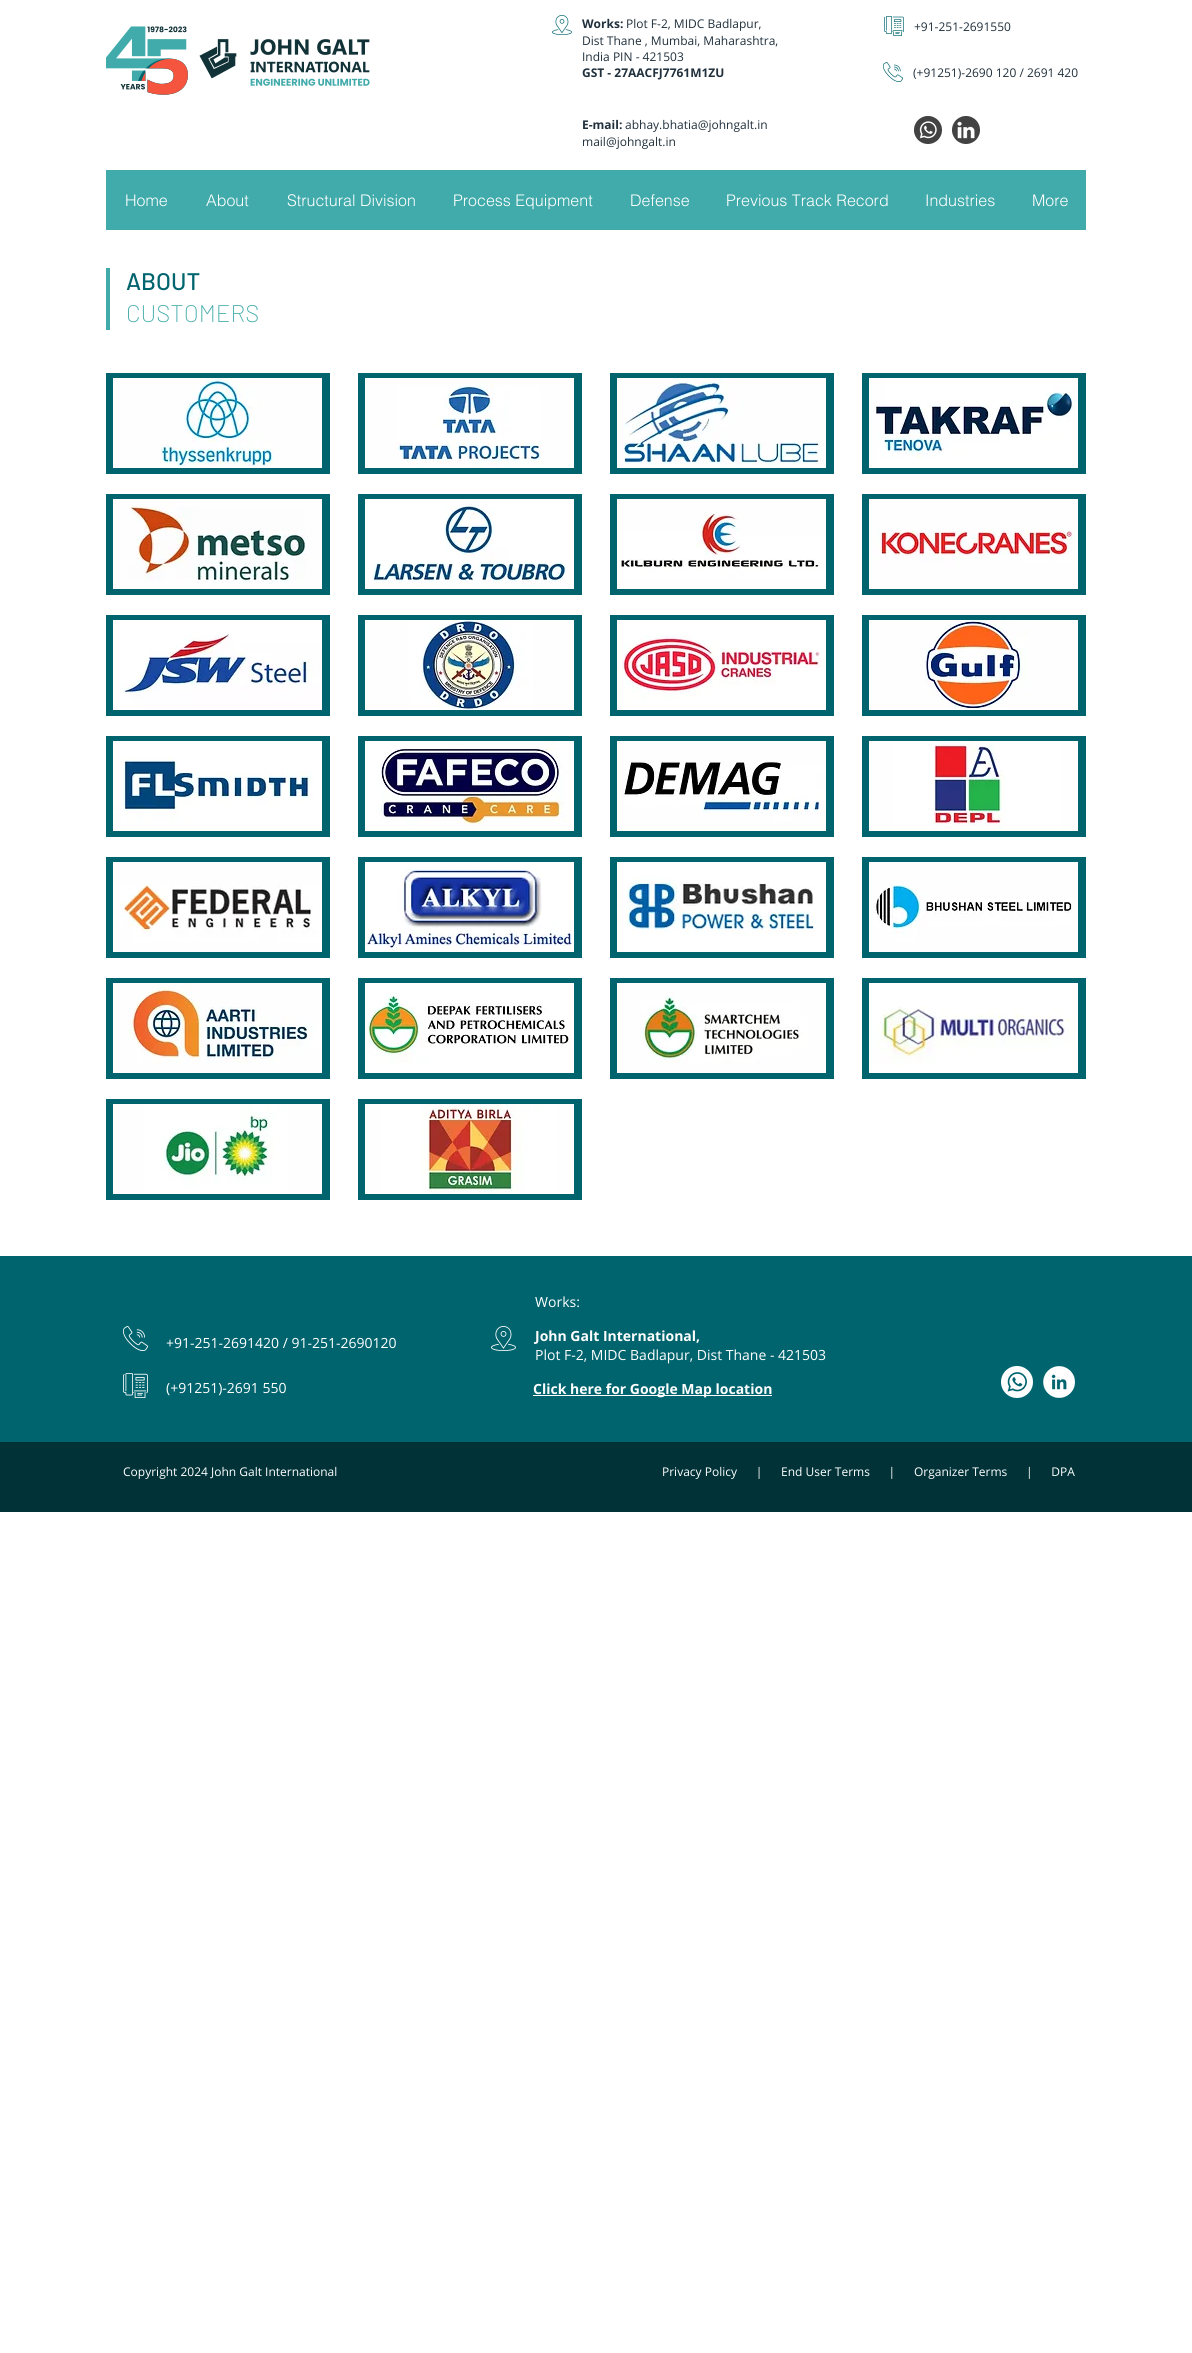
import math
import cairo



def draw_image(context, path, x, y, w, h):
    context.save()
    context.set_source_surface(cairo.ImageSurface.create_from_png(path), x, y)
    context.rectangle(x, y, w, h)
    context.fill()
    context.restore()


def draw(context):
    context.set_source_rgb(1, 1, 1)
    context.paint()
    draw_image(context, "images/1.png", 106, 26, 264, 69)
    draw_image(context, "images/2.png", 552, 15, 20, 20)
    draw_image(context, "images/3.png", 884, 16, 20, 20)
    draw_image(context, "images/4.png", 883, 62, 20, 20)
    draw_image(context, "images/5.png", 914, 116, 28, 28)
    draw_image(context, "images/6.png", 952, 116, 28, 28)
    context.set_source_rgb(65 / 255, 170 / 255, 170 / 255)
    context.rectangle(106, 170, 980, 60)
    context.fill()
    context.rectangle(106, 268, 4, 62)
    context.fill()
    context.set_source_rgb(0, 100 / 255, 110 / 255)
    context.rectangle(106, 373, 224, 101)
    context.fill()
    draw_image(context, "images/7.png", 113, 378, 209, 90)
    context.rectangle(106, 494, 224, 101)
    context.fill()
    draw_image(context, "images/8.png", 113, 499, 209, 90)
    context.rectangle(106, 615, 224, 101)
    context.fill()
    draw_image(context, "images/9.png", 113, 620, 209, 90)
    context.rectangle(106, 736, 224, 101)
    context.fill()
    draw_image(context, "images/10.png", 113, 741, 209, 90)
    context.rectangle(106, 857, 224, 101)
    context.fill()
    draw_image(context, "images/11.png", 113, 862, 209, 90)
    context.rectangle(106, 978, 224, 101)
    context.fill()
    draw_image(context, "images/12.png", 113, 983, 209, 90)
    context.rectangle(106, 1099, 224, 101)
    context.fill()
    draw_image(context, "images/13.png", 113, 1104, 209, 90)
    context.rectangle(358, 373, 224, 101)
    context.fill()
    draw_image(context, "images/14.png", 365, 378, 209, 90)
    context.rectangle(358, 494, 224, 101)
    context.fill()
    draw_image(context, "images/15.png", 365, 499, 209, 90)
    context.rectangle(358, 615, 224, 101)
    context.fill()
    draw_image(context, "images/16.png", 365, 620, 209, 90)
    context.rectangle(358, 736, 224, 101)
    context.fill()
    draw_image(context, "images/17.png", 365, 741, 209, 90)
    context.rectangle(358, 857, 224, 101)
    context.fill()
    draw_image(context, "images/18.png", 365, 862, 209, 90)
    context.rectangle(358, 978, 224, 101)
    context.fill()
    draw_image(context, "images/19.png", 365, 983, 209, 90)
    context.rectangle(358, 1099, 224, 101)
    context.fill()
    draw_image(context, "images/20.png", 365, 1104, 209, 90)
    context.rectangle(610, 373, 224, 101)
    context.fill()
    draw_image(context, "images/21.png", 617, 378, 209, 90)
    context.rectangle(610, 494, 224, 101)
    context.fill()
    draw_image(context, "images/22.png", 617, 499, 209, 90)
    context.rectangle(610, 615, 224, 101)
    context.fill()
    draw_image(context, "images/23.png", 617, 620, 209, 90)
    context.rectangle(610, 736, 224, 101)
    context.fill()
    draw_image(context, "images/24.png", 617, 741, 209, 90)
    context.rectangle(610, 857, 224, 101)
    context.fill()
    draw_image(context, "images/25.png", 617, 862, 209, 90)
    context.rectangle(610, 978, 224, 101)
    context.fill()
    draw_image(context, "images/26.png", 617, 983, 209, 90)
    context.rectangle(862, 373, 224, 101)
    context.fill()
    draw_image(context, "images/27.png", 869, 378, 209, 90)
    context.rectangle(862, 494, 224, 101)
    context.fill()
    draw_image(context, "images/28.png", 869, 499, 209, 90)
    context.rectangle(862, 615, 224, 101)
    context.fill()
    draw_image(context, "images/29.png", 869, 620, 209, 90)
    context.rectangle(862, 736, 224, 101)
    context.fill()
    draw_image(context, "images/30.png", 869, 741, 209, 90)
    context.rectangle(862, 857, 224, 101)
    context.fill()
    draw_image(context, "images/31.png", 869, 862, 209, 90)
    context.rectangle(862, 978, 224, 101)
    context.fill()
    draw_image(context, "images/32.png", 869, 983, 209, 90)
    context.rectangle(0, 1256, 1192, 186)
    context.fill()
    draw_image(context, "images/33.png", 123, 1326, 25, 25)
    draw_image(context, "images/34.png", 491, 1326, 25, 25)
    draw_image(context, "images/35.png", 123, 1373, 25, 25)
    context.set_source_rgb(1, 1, 1)
    context.rectangle(533, 1395, 239, 1)
    context.fill()
    draw_image(context, "images/36.png", 1001, 1366, 32, 32)
    draw_image(context, "images/37.png", 1043, 1366, 32, 32)
    context.set_source_rgb(0, 50 / 255, 55 / 255)
    context.rectangle(0, 1442, 1192, 70)
    context.fill()
    context.select_font_face("Open Sans", cairo.FontSlant.NORMAL, cairo.FontWeight.BOLD)
    context.set_font_size(12)
    context.set_source_rgb(32 / 255, 48 / 255, 60 / 255)
    context.move_to(582, 28)
    context.show_text("Works:")
    context.select_font_face("Open Sans")
    context.move_to(626, 28)
    context.show_text("Plot F-2, MIDC Badlapur,")
    context.move_to(582, 45)
    context.show_text("Dist Thane , Mumbai, Maharashtra,")
    context.move_to(582, 61)
    context.show_text("India PIN - 421503")
    context.select_font_face("Open Sans", cairo.FontSlant.NORMAL, cairo.FontWeight.BOLD)
    context.move_to(582, 77)
    context.show_text("GST - 27AACFJ7761M1ZU")
    context.select_font_face("Open Sans")
    context.move_to(914, 31)
    context.show_text("+91-251-2691550")
    context.move_to(913, 77)
    context.show_text("(+91251)-2690 120 / 2691 420")
    context.select_font_face("Open Sans", cairo.FontSlant.NORMAL, cairo.FontWeight.BOLD)
    context.move_to(582, 129)
    context.show_text("E-mail:")
    context.select_font_face("Open Sans")
    context.move_to(625, 129)
    context.show_text("abhay.bhatia@johngalt.in")
    context.move_to(582, 146)
    context.show_text("mail@johngalt.in")
    context.select_font_face("helvetica Light")
    context.set_font_size(16)
    context.set_source_rgb(1, 1, 1)
    context.move_to(125, 206)
    context.show_text("Home")
    context.move_to(206, 206)
    context.show_text("About")
    context.move_to(287, 206)
    context.show_text("Structural Division")
    context.move_to(453, 206)
    context.show_text("Process Equipment")
    context.move_to(630, 206)
    context.show_text("Defense")
    context.move_to(726, 206)
    context.show_text("Previous Track Record")
    context.move_to(925, 206)
    context.show_text("Industries")
    context.move_to(1032, 206)
    context.show_text("More")
    context.select_font_face("Barlow Medium")
    context.set_font_size(24)
    context.set_source_rgb(0, 100 / 255, 110 / 255)
    context.move_to(126, 290)
    context.show_text("ABOUT")
    context.select_font_face("Barlow ExtraLight")
    context.set_source_rgb(65 / 255, 170 / 255, 170 / 255)
    context.move_to(126, 322)
    context.show_text("CUSTOMERS")
    context.select_font_face("Open Sans")
    context.set_font_size(14)
    context.set_source_rgb(1, 1, 1)
    context.move_to(535, 1307)
    context.show_text("Works:")
    context.move_to(166, 1348)
    context.show_text("+91-251-2691420 / 91-251-2690120")
    context.select_font_face("Open Sans", cairo.FontSlant.NORMAL, cairo.FontWeight.BOLD)
    context.move_to(535, 1341)
    context.show_text("John Galt International,")
    context.select_font_face("Open Sans")
    context.move_to(535, 1360)
    context.show_text("Plot F-2, MIDC Badlapur, Dist Thane - 421503")
    context.move_to(166, 1393)
    context.show_text("(+91251)-2691 550")
    context.select_font_face("Open Sans", cairo.FontSlant.NORMAL, cairo.FontWeight.BOLD)
    context.move_to(533, 1394)
    context.show_text("Click here for Google Map location")
    context.select_font_face("Open Sans")
    context.set_font_size(12)
    context.move_to(123, 1476)
    context.show_text("Copyright 2024 John Galt International")
    context.move_to(662, 1476)
    context.show_text("Privacy Policy      |      End User Terms      |      Organizer Terms      |      DPA")


surface = cairo.ImageSurface(cairo.Format.RGB24, 1192, 2353)
context = cairo.Context(surface)
options = cairo.FontOptions()
options.set_hint_metrics(cairo.HintMetrics.OFF)
options.set_hint_style(cairo.HintStyle.NONE)
context.set_font_options(options)
context.set_miter_limit(4)
draw(context)
surface.write_to_png("out.png")
